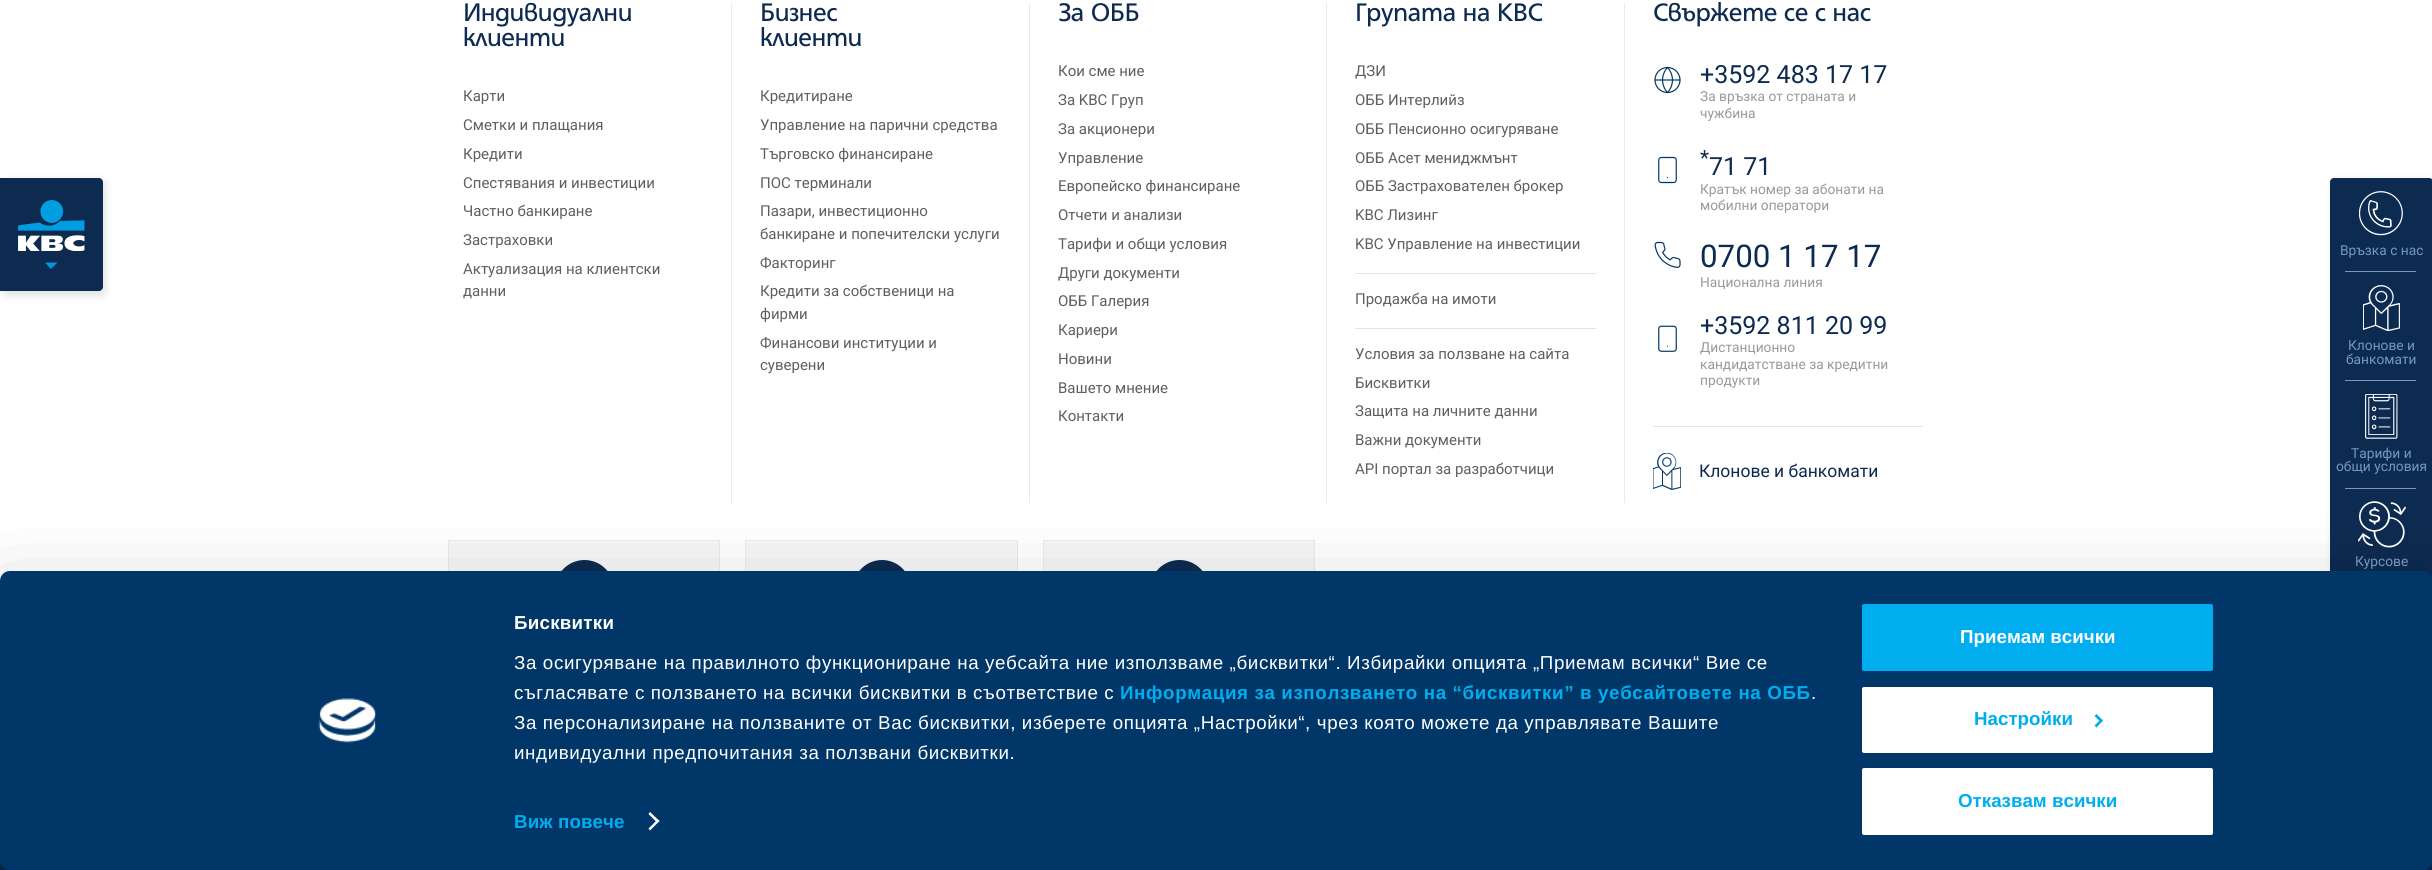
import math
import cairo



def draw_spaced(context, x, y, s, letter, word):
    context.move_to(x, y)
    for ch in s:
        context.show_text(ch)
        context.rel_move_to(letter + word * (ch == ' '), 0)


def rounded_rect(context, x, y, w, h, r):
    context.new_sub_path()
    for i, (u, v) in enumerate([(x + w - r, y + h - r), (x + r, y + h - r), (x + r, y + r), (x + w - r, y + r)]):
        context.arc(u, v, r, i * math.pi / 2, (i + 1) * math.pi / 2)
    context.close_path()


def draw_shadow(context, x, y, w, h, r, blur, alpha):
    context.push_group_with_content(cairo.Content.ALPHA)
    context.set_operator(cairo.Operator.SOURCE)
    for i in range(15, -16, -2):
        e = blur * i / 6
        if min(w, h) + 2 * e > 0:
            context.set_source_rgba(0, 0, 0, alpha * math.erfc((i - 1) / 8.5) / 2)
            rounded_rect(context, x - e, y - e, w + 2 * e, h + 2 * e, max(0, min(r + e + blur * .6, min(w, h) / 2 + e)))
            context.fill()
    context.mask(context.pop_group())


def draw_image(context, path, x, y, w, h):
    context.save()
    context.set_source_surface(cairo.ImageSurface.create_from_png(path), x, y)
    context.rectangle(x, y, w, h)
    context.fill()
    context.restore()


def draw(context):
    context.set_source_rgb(1, 1, 1)
    context.paint()
    context.set_source_rgb(234 / 255, 234 / 255, 234 / 255)
    context.rectangle(731, 3, 1, 500)
    context.fill()
    context.rectangle(1029, 3, 1, 500)
    context.fill()
    context.rectangle(1326, 3, 1, 500)
    context.fill()
    context.rectangle(1624, 3, 1, 500)
    context.fill()
    context.set_source_rgb(229 / 255, 229 / 255, 229 / 255)
    context.rectangle(1355, 273, 241, 1)
    context.fill()
    context.rectangle(1355, 328, 241, 1)
    context.fill()
    draw_image(context, "images/1.png", 1654, 66, 27, 28)
    draw_image(context, "images/2.png", 1658, 156, 19, 28)
    draw_image(context, "images/3.png", 1654, 241, 27, 27)
    draw_image(context, "images/4.png", 1658, 325, 19, 27)
    context.rectangle(1653, 426, 270, 1)
    context.fill()
    draw_image(context, "images/5.png", 1653, 453, 28, 37)
    context.set_source_rgb(247 / 255, 247 / 255, 247 / 255)
    context.rectangle(449, 541, 270, 30)
    context.fill()
    context.rectangle(448.5, 540.5, 271, 132)
    context.set_source_rgb(234 / 255, 234 / 255, 234 / 255)
    context.set_line_width(1)
    context.stroke()
    context.set_source_rgb(13 / 255, 42 / 255, 80 / 255)
    context.arc(584.5, 589.5, 29.5, 0, 2 * math.pi)
    context.fill()
    context.set_source_rgb(247 / 255, 247 / 255, 247 / 255)
    context.rectangle(746, 541, 271, 30)
    context.fill()
    context.rectangle(745.5, 540.5, 272, 132)
    context.set_source_rgb(234 / 255, 234 / 255, 234 / 255)
    context.stroke()
    context.set_source_rgb(13 / 255, 42 / 255, 80 / 255)
    rounded_rect(context, 853, 560, 58, 59, 29)
    context.fill()
    context.set_source_rgb(247 / 255, 247 / 255, 247 / 255)
    context.rectangle(1044, 541, 270, 30)
    context.fill()
    context.rectangle(1043.5, 540.5, 271, 132)
    context.set_source_rgb(234 / 255, 234 / 255, 234 / 255)
    context.stroke()
    context.set_source_rgb(13 / 255, 42 / 255, 80 / 255)
    context.arc(1179.5, 589.5, 29.5, 0, 2 * math.pi)
    context.fill()
    context.set_source_rgb(0, 0, 0)
    draw_shadow(context, 3, 181, 102, 114, 4, 4.5, 0.13)
    context.set_source_rgb(13 / 255, 42 / 255, 80 / 255)
    context.new_path()
    context.move_to(0, 178)
    context.line_to(99, 178)
    context.curve_to(101, 178, 103, 180, 103, 182)
    context.line_to(103, 287)
    context.curve_to(103, 289, 101, 291, 99, 291)
    context.line_to(0, 291)
    context.close_path()
    context.fill()
    draw_image(context, "images/6.png", 18, 200, 67, 51)
    context.set_source_rgb(0, 151 / 255, 219 / 255)
    context.new_path()
    context.move_to(45, 262.5)
    context.line_to(57.5, 262.5)
    context.line_to(51, 269)
    context.close_path()
    context.fill()
    context.set_source_rgb(0, 0, 0)
    draw_shadow(context, 2333, 181, 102, 407, 4, 4.5, 0.13)
    context.set_source_rgb(13 / 255, 42 / 255, 80 / 255)
    rounded_rect(context, 2330, 178, 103, 406, 4)
    context.fill()
    draw_image(context, "images/7.png", 2359, 191, 44, 45)
    context.set_source_rgb(115 / 255, 153 / 255, 188 / 255)
    context.rectangle(2345, 271, 71, 1)
    context.fill()
    draw_image(context, "images/8.png", 2363, 285, 37, 46)
    context.rectangle(2345, 380, 71, 1)
    context.fill()
    draw_image(context, "images/9.png", 2365, 394, 33, 45)
    context.rectangle(2345, 488, 71, 1)
    context.fill()
    draw_image(context, "images/10.png", 2358, 501, 48, 47)
    context.set_source_rgb(13 / 255, 42 / 255, 80 / 255)
    context.rectangle(0, 860, 2432, 10)
    context.fill()
    context.set_source_rgb(0, 0, 0)
    draw_shadow(context, 0, 609, 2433, 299, 10, 44, 0.3)
    context.set_source_rgb(0, 55 / 255, 104 / 255)
    rounded_rect(context, 0, 571, 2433, 299, 10)
    context.fill()
    draw_image(context, "images/11.png", 318, 698, 59, 45)
    context.set_source_rgb(1, 1, 1)
    context.new_path()
    context.move_to(650, 812)
    context.line_to(659.5, 821)
    context.line_to(657.5, 823)
    context.line_to(648.5, 814)
    context.close_path()
    context.fill()
    context.new_path()
    context.move_to(657.5, 819.5)
    context.line_to(659.5, 821)
    context.line_to(650, 830.5)
    context.line_to(648.5, 828.5)
    context.close_path()
    context.fill()
    context.set_source_rgb(0, 174 / 255, 239 / 255)
    rounded_rect(context, 1860.5, 602.5, 354, 70, 3.5)
    context.fill_preserve()
    context.set_source_rgb(0, 55 / 255, 104 / 255)
    context.set_line_width(3)
    context.stroke()
    context.set_source_rgb(1, 1, 1)
    rounded_rect(context, 1860.5, 685.5, 354, 69, 3.5)
    context.fill_preserve()
    context.set_source_rgb(0, 55 / 255, 104 / 255)
    context.stroke()
    context.set_source_rgb(0, 174 / 255, 239 / 255)
    context.new_path()
    context.move_to(2096.5, 714)
    context.line_to(2103, 720.5)
    context.line_to(2101, 722.5)
    context.line_to(2094.5, 716)
    context.close_path()
    context.fill()
    context.new_path()
    context.move_to(2101, 719)
    context.line_to(2103, 720.5)
    context.line_to(2096.5, 727.5)
    context.line_to(2094.5, 725.5)
    context.close_path()
    context.fill()
    context.set_source_rgb(1, 1, 1)
    rounded_rect(context, 1860.5, 766.5, 354, 70, 3.5)
    context.fill_preserve()
    context.set_source_rgb(0, 55 / 255, 104 / 255)
    context.stroke()
    context.select_font_face("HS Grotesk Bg")
    context.set_font_size(27.5)
    context.set_source_rgb(13 / 255, 42 / 255, 80 / 255)
    draw_spaced(context, 463, 21, "Индивидуални", -0.5, 0)
    draw_spaced(context, 463, 46, "клиенти", -0.5, 0)
    context.select_font_face("Roboto")
    context.set_font_size(15)
    context.set_source_rgb(95 / 255, 95 / 255, 95 / 255)
    context.move_to(463, 101)
    context.show_text("Карти")
    context.move_to(463, 130)
    context.show_text("Сметки и плащания")
    context.move_to(463, 159)
    context.show_text("Кредити")
    context.move_to(463, 188)
    context.show_text("Спестявания и инвестиции")
    context.move_to(463, 216)
    context.show_text("Частно банкиране")
    context.move_to(463, 245)
    context.show_text("Застраховки")
    context.move_to(463, 274)
    context.show_text("Актуализация на клиентски")
    context.move_to(463, 296)
    context.show_text("данни")
    context.select_font_face("HS Grotesk Bg")
    context.set_font_size(27.5)
    context.set_source_rgb(13 / 255, 42 / 255, 80 / 255)
    draw_spaced(context, 760, 21, "Бизнес", -0.5, 0)
    draw_spaced(context, 760, 46, "клиенти", -0.5, 0)
    context.select_font_face("Roboto")
    context.set_font_size(15)
    context.set_source_rgb(95 / 255, 95 / 255, 95 / 255)
    context.move_to(760, 101)
    context.show_text("Кредитиране")
    context.move_to(760, 130)
    context.show_text("Управление на парични средства")
    context.move_to(760, 159)
    context.show_text("Търговско финансиране")
    context.move_to(760, 188)
    context.show_text("ПОС терминали")
    context.move_to(760, 216)
    context.show_text("Пазари, инвестиционно")
    context.move_to(760, 239)
    context.show_text("банкиране и попечителски услуги")
    context.move_to(760, 268)
    context.show_text("Факторинг")
    context.move_to(760, 296)
    context.show_text("Кредити за собственици на")
    context.move_to(760, 319)
    context.show_text("фирми")
    context.move_to(760, 348)
    context.show_text("Финансови институции и")
    context.move_to(760, 370)
    context.show_text("суверени")
    context.select_font_face("HS Grotesk Bg")
    context.set_font_size(27.5)
    context.set_source_rgb(13 / 255, 42 / 255, 80 / 255)
    draw_spaced(context, 1058, 21, "За ОББ", -0.5, 0)
    context.select_font_face("Roboto")
    context.set_font_size(15)
    context.set_source_rgb(95 / 255, 95 / 255, 95 / 255)
    context.move_to(1058, 76)
    context.show_text("Кои сме ние")
    context.move_to(1058, 105)
    context.show_text("За KBC Груп")
    context.move_to(1058, 134)
    context.show_text("За акционери")
    context.move_to(1058, 163)
    context.show_text("Управление")
    context.move_to(1058, 191)
    context.show_text("Европейско финансиране")
    context.move_to(1058, 220)
    context.show_text("Отчети и анализи")
    context.move_to(1058, 249)
    context.show_text("Тарифи и общи условия")
    context.move_to(1058, 278)
    context.show_text("Други документи")
    context.move_to(1058, 306)
    context.show_text("ОББ Галерия")
    context.move_to(1058, 335)
    context.show_text("Кариери")
    context.move_to(1058, 364)
    context.show_text("Новини")
    context.move_to(1058, 393)
    context.show_text("Вашето мнение")
    context.move_to(1058, 421)
    context.show_text("Контакти")
    context.select_font_face("HS Grotesk Bg")
    context.set_font_size(27.5)
    context.set_source_rgb(13 / 255, 42 / 255, 80 / 255)
    draw_spaced(context, 1355, 21, "Групата на KBC", -0.5, 0)
    context.select_font_face("Roboto")
    context.set_font_size(15)
    context.set_source_rgb(95 / 255, 95 / 255, 95 / 255)
    context.move_to(1355, 76)
    context.show_text("ДЗИ")
    context.move_to(1355, 105)
    context.show_text("ОББ Интерлийз")
    context.move_to(1355, 134)
    context.show_text("ОББ Пенсионно осигуряване")
    context.move_to(1355, 163)
    context.show_text("ОББ Асет мениджмънт")
    context.move_to(1355, 191)
    context.show_text("ОББ Застрахователен брокер")
    context.move_to(1355, 220)
    context.show_text("KBC Лизинг")
    context.move_to(1355, 249)
    context.show_text("KBC Управление на инвестиции")
    context.move_to(1355, 304)
    context.show_text("Продажба на имоти")
    context.move_to(1355, 359)
    context.show_text("Условия за ползване на сайта")
    context.move_to(1355, 388)
    context.show_text("Бисквитки")
    context.move_to(1355, 416)
    context.show_text("Защита на личните данни")
    context.move_to(1355, 445)
    context.show_text("Важни документи")
    context.move_to(1355, 474)
    context.show_text("API портал за разработчици")
    context.select_font_face("HS Grotesk Bg")
    context.set_font_size(27.5)
    context.set_source_rgb(13 / 255, 42 / 255, 80 / 255)
    draw_spaced(context, 1653, 21, "Свържете се с нас", -0.5, 0)
    context.select_font_face("Roboto")
    context.set_font_size(25)
    context.move_to(1700, 83)
    context.show_text("+3592 483 17 17")
    context.set_font_size(13.75)
    context.set_source_rgb(153 / 255, 153 / 255, 153 / 255)
    context.move_to(1700, 101)
    context.show_text("За връзка от страната и")
    context.move_to(1700, 118)
    context.show_text("чужбина")
    context.set_font_size(21)
    context.set_source_rgb(13 / 255, 42 / 255, 80 / 255)
    context.move_to(1700, 165)
    context.show_text("*")
    context.set_font_size(25)
    context.move_to(1709, 175)
    context.show_text("71 71")
    context.set_font_size(13.75)
    context.set_source_rgb(153 / 255, 153 / 255, 153 / 255)
    context.move_to(1700, 194)
    context.show_text("Кратък номер за абонати на")
    context.move_to(1700, 210)
    context.show_text("мобилни оператори")
    context.set_font_size(31.25)
    context.set_source_rgb(13 / 255, 42 / 255, 80 / 255)
    context.move_to(1700, 267)
    context.show_text("0700 1 17 17")
    context.set_font_size(13.75)
    context.set_source_rgb(153 / 255, 153 / 255, 153 / 255)
    context.move_to(1700, 287)
    context.show_text("Национална линия")
    context.set_font_size(25)
    context.set_source_rgb(13 / 255, 42 / 255, 80 / 255)
    context.move_to(1700, 334)
    context.show_text("+3592 811 20 99")
    context.set_font_size(13.75)
    context.set_source_rgb(153 / 255, 153 / 255, 153 / 255)
    context.move_to(1700, 352)
    context.show_text("Дистанционно")
    context.move_to(1700, 369)
    context.show_text("кандидатстване за кредитни")
    context.move_to(1700, 385)
    context.show_text("продукти")
    context.set_font_size(17.5)
    context.set_source_rgb(13 / 255, 42 / 255, 80 / 255)
    context.move_to(1699, 477)
    context.show_text("Клонове и банкомати")
    context.set_font_size(13.75)
    context.set_source_rgb(115 / 255, 153 / 255, 188 / 255)
    context.move_to(2340, 255)
    context.show_text("Връзка с нас")
    context.move_to(2348, 350)
    context.show_text("Клонове и")
    context.move_to(2346, 364)
    context.show_text("банкомати")
    context.move_to(2351, 458)
    context.show_text("Тарифи и")
    context.move_to(2336, 471)
    context.show_text("общи условия")
    context.move_to(2355, 566)
    context.show_text("Курсове")
    context.select_font_face("Liberation Sans", cairo.FontSlant.NORMAL, cairo.FontWeight.BOLD)
    context.set_font_size(18.75)
    context.set_source_rgb(1, 1, 1)
    draw_spaced(context, 514, 629, "Бисквитки", 0.25, 0)
    context.select_font_face("Liberation Sans")
    draw_spaced(context, 514, 669, "За осигуряване на правилното функциониране на уебсайта ние използваме „бисквитки“. Избирайки опцията „Приемам всички“ Вие се", 0.62, 0)
    draw_spaced(context, 514, 699, "съгласявате с ползването на всички бисквитки в съответствие с", 0.62, 0)
    context.select_font_face("Liberation Sans", cairo.FontSlant.NORMAL, cairo.FontWeight.BOLD)
    context.set_source_rgb(0, 174 / 255, 239 / 255)
    draw_spaced(context, 1120, 699, "Информация за използването на “бисквитки” в уебсайтовете на ОББ", 0.62, 0)
    context.select_font_face("Liberation Sans")
    context.set_source_rgb(1, 1, 1)
    draw_spaced(context, 1811, 699, ".", 0.62, 0)
    draw_spaced(context, 514, 729, "За персонализиране на ползваните от Вас бисквитки, изберете опцията „Настройки“, чрез която можете да управлявате Вашите", 0.62, 0)
    draw_spaced(context, 514, 759, "индивидуални предпочитания за ползвани бисквитки.", 0.62, 0)
    context.select_font_face("Liberation Sans", cairo.FontSlant.NORMAL, cairo.FontWeight.BOLD)
    context.set_source_rgb(0, 174 / 255, 239 / 255)
    draw_spaced(context, 514, 828, "Виж повече", 0.1, 0)
    context.set_source_rgb(1, 1, 1)
    context.move_to(1960, 643)
    context.show_text("Приемам всички")
    context.set_source_rgb(0, 174 / 255, 239 / 255)
    context.move_to(1974, 725)
    context.show_text("Настройки")
    context.move_to(1958, 807)
    context.show_text("Отказвам всички")


surface = cairo.ImageSurface(cairo.Format.RGB24, 2432, 870)
context = cairo.Context(surface)
options = cairo.FontOptions()
options.set_hint_metrics(cairo.HintMetrics.OFF)
options.set_hint_style(cairo.HintStyle.NONE)
context.set_font_options(options)
context.set_miter_limit(4)
draw(context)
surface.write_to_png("out.png")
